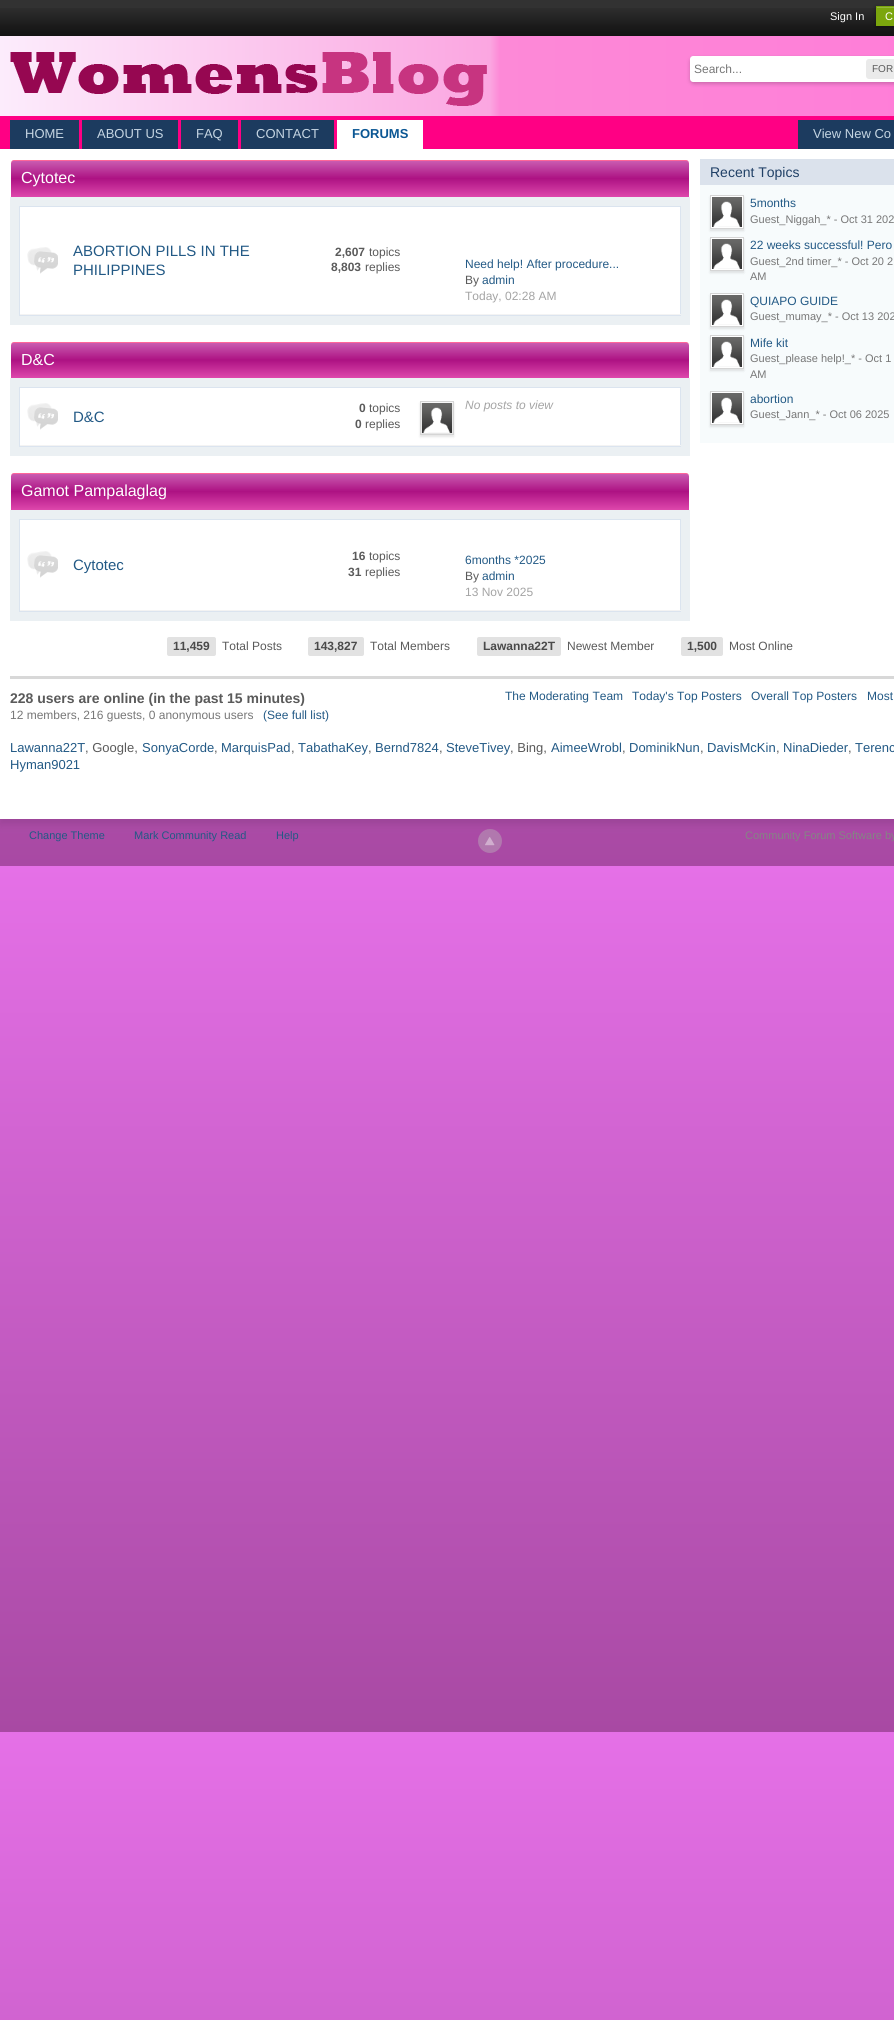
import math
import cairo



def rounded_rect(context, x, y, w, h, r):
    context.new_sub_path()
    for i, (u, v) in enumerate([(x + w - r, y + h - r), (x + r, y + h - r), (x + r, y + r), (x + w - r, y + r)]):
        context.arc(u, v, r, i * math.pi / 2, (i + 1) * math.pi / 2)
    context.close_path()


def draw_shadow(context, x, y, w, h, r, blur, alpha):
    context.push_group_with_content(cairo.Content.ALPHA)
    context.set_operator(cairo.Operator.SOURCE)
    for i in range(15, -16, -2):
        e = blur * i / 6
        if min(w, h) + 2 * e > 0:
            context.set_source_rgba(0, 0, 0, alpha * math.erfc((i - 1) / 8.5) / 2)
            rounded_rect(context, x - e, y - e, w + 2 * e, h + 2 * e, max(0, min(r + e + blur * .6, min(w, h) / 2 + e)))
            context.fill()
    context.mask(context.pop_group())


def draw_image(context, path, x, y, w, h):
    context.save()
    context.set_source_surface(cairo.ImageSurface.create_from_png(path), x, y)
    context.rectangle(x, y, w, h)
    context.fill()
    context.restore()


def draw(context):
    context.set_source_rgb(1, 1, 1)
    context.paint()
    gradient = cairo.LinearGradient(447, 0, 447, 866)
    gradient.add_color_stop_rgba(0, 229 / 255, 112 / 255, 231 / 255, 1)
    gradient.add_color_stop_rgba(0.47, 200 / 255, 94 / 255, 199 / 255, 1)
    gradient.add_color_stop_rgba(1, 168 / 255, 73 / 255, 163 / 255, 1)
    context.set_source(gradient)
    context.rectangle(0, 819, 894, 47)
    context.fill()
    gradient = cairo.LinearGradient(447, 866, 447, 1732)
    gradient.add_color_stop_rgba(0, 229 / 255, 112 / 255, 231 / 255, 1)
    gradient.add_color_stop_rgba(0.47, 200 / 255, 94 / 255, 199 / 255, 1)
    gradient.add_color_stop_rgba(1, 168 / 255, 73 / 255, 163 / 255, 1)
    context.set_source(gradient)
    context.rectangle(0, 866, 894, 866)
    context.fill()
    gradient = cairo.LinearGradient(447, 1732, 447, 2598)
    gradient.add_color_stop_rgba(0, 229 / 255, 112 / 255, 231 / 255, 1)
    gradient.add_color_stop_rgba(0.47, 200 / 255, 94 / 255, 199 / 255, 1)
    gradient.add_color_stop_rgba(1, 168 / 255, 73 / 255, 163 / 255, 1)
    context.set_source(gradient)
    context.rectangle(0, 1732, 894, 288)
    context.fill()
    context.set_source_rgb(50 / 255, 50 / 255, 50 / 255)
    context.rectangle(0, 0, 894, 8)
    context.fill()
    draw_image(context, "images/1.png", 0, 8, 894, 28)
    context.set_source_rgb(0, 0, 0)
    draw_shadow(context, 876, 7, 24, 20, 0, 2, 0.4)
    context.set_source_rgb(123 / 255, 166 / 255, 13 / 255)
    context.rectangle(876, 6, 18, 20)
    context.fill()
    context.set_source_rgb(149 / 255, 184 / 255, 61 / 255)
    context.rectangle(877, 7, 17, 1)
    context.fill()
    gradient = cairo.LinearGradient(0, 76, 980, 76)
    gradient.add_color_stop_rgba(0, 252 / 255, 236 / 255, 252 / 255, 1)
    gradient.add_color_stop_rgba(0.5, 251 / 255, 166 / 255, 225 / 255, 1)
    gradient.add_color_stop_rgba(0.51, 253 / 255, 137 / 255, 215 / 255, 1)
    gradient.add_color_stop_rgba(1, 1, 124 / 255, 216 / 255, 1)
    context.set_source(gradient)
    context.rectangle(0, 36, 894, 80)
    context.fill()
    draw_image(context, "images/2.png", 10, 52, 477, 54)
    context.set_source_rgb(0, 0, 0)
    draw_shadow(context, 690, 58, 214, 26, 4, 2, 0.2)
    context.set_source_rgb(1, 1, 1)
    context.new_path()
    context.move_to(693, 56)
    context.line_to(894, 56)
    context.curve_to(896, 56, 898, 58, 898, 60)
    context.line_to(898, 78)
    context.curve_to(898, 80, 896, 82, 894, 82)
    context.line_to(693, 82)
    context.curve_to(691.5, 82, 690, 80.5, 690, 79)
    context.line_to(690, 59)
    context.curve_to(690, 57.5, 691.5, 56, 693, 56)
    context.close_path()
    context.fill()
    context.set_source_rgb(234 / 255, 234 / 255, 234 / 255)
    rounded_rect(context, 866, 59, 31, 20, 3)
    context.fill()
    context.set_source_rgb(1, 0, 132 / 255)
    context.rectangle(0, 116, 894, 33)
    context.fill()
    context.set_source_rgb(0, 0, 0)
    draw_shadow(context, 0, 154, 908, 670, 0, 4.5, 0.1)
    context.set_source_rgb(28 / 255, 59 / 255, 95 / 255)
    context.rectangle(10, 120, 69, 29)
    context.fill()
    context.rectangle(82, 120, 96, 29)
    context.fill()
    context.rectangle(181, 120, 57, 29)
    context.fill()
    context.rectangle(241, 120, 93, 29)
    context.fill()
    context.set_source_rgb(1, 1, 1)
    context.rectangle(337, 120, 86, 29)
    context.fill()
    context.set_source_rgb(28 / 255, 59 / 255, 95 / 255)
    context.rectangle(798, 120, 96, 29)
    context.fill()
    context.set_source_rgb(1, 1, 1)
    context.rectangle(0, 149, 894, 670)
    context.fill()
    gradient = cairo.LinearGradient(350, 160, 350, 197)
    gradient.add_color_stop_rgba(0, 203 / 255, 96 / 255, 179 / 255, 1)
    gradient.add_color_stop_rgba(0.5, 173 / 255, 18 / 255, 131 / 255, 1)
    gradient.add_color_stop_rgba(1, 222 / 255, 71 / 255, 172 / 255, 1)
    context.set_source(gradient)
    context.new_path()
    context.move_to(14, 160)
    context.line_to(686, 160)
    context.curve_to(687.5, 160, 689, 161.5, 689, 163)
    context.line_to(689, 197)
    context.line_to(11, 197)
    context.line_to(11, 163)
    context.curve_to(11, 161.5, 12.5, 160, 14, 160)
    context.close_path()
    context.fill()
    context.set_source_rgb(1, 102 / 255, 153 / 255)
    context.new_path()
    context.move_to(14, 161)
    context.line_to(686, 161)
    context.curve_to(688, 161, 689, 162, 689, 164)
    context.line_to(689, 163)
    context.curve_to(689, 161, 688, 160, 686, 160)
    context.line_to(14, 160)
    context.curve_to(12, 160, 11, 161, 11, 163)
    context.line_to(11, 164)
    context.curve_to(11, 162, 12, 161, 14, 161)
    context.close_path()
    context.fill()
    context.set_source_rgb(1, 1, 1)
    context.set_fill_rule(cairo.FillRule.EVEN_ODD)
    context.new_path()
    context.move_to(14, 159)
    context.line_to(686, 159)
    context.curve_to(688, 159, 690, 161, 690, 163)
    context.line_to(690, 197)
    context.line_to(10, 197)
    context.line_to(10, 163)
    context.curve_to(10, 161, 12, 159, 14, 159)
    context.close_path()
    context.move_to(14, 160)
    context.line_to(686, 160)
    context.curve_to(688, 160, 689, 161, 689, 163)
    context.line_to(689, 197)
    context.line_to(11, 197)
    context.line_to(11, 163)
    context.curve_to(11, 161, 12, 160, 14, 160)
    context.close_path()
    context.fill()
    context.set_source_rgb(235 / 255, 240 / 255, 243 / 255)
    context.rectangle(10, 197, 680, 128)
    context.fill()
    context.set_source_rgb(1, 1, 1)
    context.rectangle(20, 207, 660, 107)
    context.fill()
    context.rectangle(19.5, 206.5, 661, 109)
    context.set_source_rgb(219 / 255, 228 / 255, 239 / 255)
    context.set_line_width(1)
    context.stroke()
    draw_image(context, "images/3.png", 27, 247, 31, 27)
    context.set_source_rgb(243 / 255, 243 / 255, 243 / 255)
    context.rectangle(20, 314, 661, 1)
    context.fill()
    gradient = cairo.LinearGradient(350, 342, 350, 378)
    gradient.add_color_stop_rgba(0, 203 / 255, 96 / 255, 179 / 255, 1)
    gradient.add_color_stop_rgba(0.5, 173 / 255, 18 / 255, 131 / 255, 1)
    gradient.add_color_stop_rgba(1, 222 / 255, 71 / 255, 172 / 255, 1)
    context.set_source(gradient)
    context.new_path()
    context.move_to(14, 342)
    context.line_to(686, 342)
    context.curve_to(687.5, 342, 689, 343.5, 689, 345)
    context.line_to(689, 378)
    context.line_to(11, 378)
    context.line_to(11, 345)
    context.curve_to(11, 343.5, 12.5, 342, 14, 342)
    context.close_path()
    context.fill()
    context.set_source_rgb(1, 102 / 255, 153 / 255)
    context.set_fill_rule(cairo.FillRule.WINDING)
    context.new_path()
    context.move_to(14, 343)
    context.line_to(686, 343)
    context.curve_to(688, 343, 689, 344, 689, 346)
    context.line_to(689, 345)
    context.curve_to(689, 343, 688, 342, 686, 342)
    context.line_to(14, 342)
    context.curve_to(12, 342, 11, 343, 11, 345)
    context.line_to(11, 346)
    context.curve_to(11, 344, 12, 343, 14, 343)
    context.close_path()
    context.fill()
    context.set_source_rgb(1, 1, 1)
    context.set_fill_rule(cairo.FillRule.EVEN_ODD)
    context.new_path()
    context.move_to(14, 341)
    context.line_to(686, 341)
    context.curve_to(688, 341, 690, 343, 690, 345)
    context.line_to(690, 378)
    context.line_to(10, 378)
    context.line_to(10, 345)
    context.curve_to(10, 343, 12, 341, 14, 341)
    context.close_path()
    context.move_to(14, 342)
    context.line_to(686, 342)
    context.curve_to(688, 342, 689, 343, 689, 345)
    context.line_to(689, 378)
    context.line_to(11, 378)
    context.line_to(11, 345)
    context.curve_to(11, 343, 12, 342, 14, 342)
    context.close_path()
    context.fill()
    context.set_source_rgb(235 / 255, 240 / 255, 243 / 255)
    context.rectangle(10, 378, 680, 78)
    context.fill()
    context.set_source_rgb(1, 1, 1)
    context.rectangle(20, 388, 660, 57)
    context.fill()
    context.rectangle(19.5, 387.5, 661, 59)
    context.set_source_rgb(219 / 255, 228 / 255, 239 / 255)
    context.stroke()
    draw_image(context, "images/3.png", 27, 403, 31, 27)
    context.set_source_rgb(243 / 255, 243 / 255, 243 / 255)
    context.rectangle(20, 445, 661, 1)
    context.fill()
    context.set_source_rgb(0, 0, 0)
    draw_shadow(context, 420, 403, 34, 34, 0, 1, 0.1)
    context.rectangle(420.5, 401.5, 33, 33)
    context.set_source_rgb(213 / 255, 213 / 255, 213 / 255)
    context.stroke()
    draw_image(context, "images/4.png", 422, 403, 30, 30)
    gradient = cairo.LinearGradient(350, 473, 350, 510)
    gradient.add_color_stop_rgba(0, 203 / 255, 96 / 255, 179 / 255, 1)
    gradient.add_color_stop_rgba(0.5, 173 / 255, 18 / 255, 131 / 255, 1)
    gradient.add_color_stop_rgba(1, 222 / 255, 71 / 255, 172 / 255, 1)
    context.set_source(gradient)
    context.new_path()
    context.move_to(14, 473)
    context.line_to(686, 473)
    context.curve_to(687.5, 473, 689, 474.5, 689, 476)
    context.line_to(689, 510)
    context.line_to(11, 510)
    context.line_to(11, 476)
    context.curve_to(11, 474.5, 12.5, 473, 14, 473)
    context.close_path()
    context.fill()
    context.set_source_rgb(1, 102 / 255, 153 / 255)
    context.set_fill_rule(cairo.FillRule.WINDING)
    context.new_path()
    context.move_to(14, 474)
    context.line_to(686, 474)
    context.curve_to(688, 474, 689, 475, 689, 477)
    context.line_to(689, 476)
    context.curve_to(689, 474, 688, 473, 686, 473)
    context.line_to(14, 473)
    context.curve_to(12, 473, 11, 474, 11, 476)
    context.line_to(11, 477)
    context.curve_to(11, 475, 12, 474, 14, 474)
    context.close_path()
    context.fill()
    context.set_source_rgb(1, 1, 1)
    context.set_fill_rule(cairo.FillRule.EVEN_ODD)
    context.new_path()
    context.move_to(14, 472)
    context.line_to(686, 472)
    context.curve_to(688, 472, 690, 474, 690, 476)
    context.line_to(690, 510)
    context.line_to(10, 510)
    context.line_to(10, 476)
    context.curve_to(10, 474, 12, 472, 14, 472)
    context.close_path()
    context.move_to(14, 473)
    context.line_to(686, 473)
    context.curve_to(688, 473, 689, 474, 689, 476)
    context.line_to(689, 510)
    context.line_to(11, 510)
    context.line_to(11, 476)
    context.curve_to(11, 474, 12, 473, 14, 473)
    context.close_path()
    context.fill()
    context.set_source_rgb(235 / 255, 240 / 255, 243 / 255)
    context.rectangle(10, 510, 680, 111)
    context.fill()
    context.set_source_rgb(1, 1, 1)
    context.rectangle(20, 520, 660, 90)
    context.fill()
    context.rectangle(19.5, 519.5, 661, 92)
    context.set_source_rgb(219 / 255, 228 / 255, 239 / 255)
    context.stroke()
    draw_image(context, "images/3.png", 27, 551, 31, 27)
    context.set_source_rgb(243 / 255, 243 / 255, 243 / 255)
    context.rectangle(20, 610, 661, 1)
    context.fill()
    context.set_source_rgb(247 / 255, 251 / 255, 252 / 255)
    context.rectangle(700, 185, 194, 258)
    context.fill()
    context.set_source_rgb(219 / 255, 226 / 255, 236 / 255)
    context.rectangle(700, 159, 194, 26)
    context.fill()
    context.set_source_rgb(0, 0, 0)
    draw_shadow(context, 710, 197, 34, 34, 0, 1, 0.1)
    context.set_source_rgb(1, 1, 1)
    context.rectangle(710.5, 195.5, 33, 33)
    context.fill_preserve()
    context.set_source_rgb(213 / 255, 213 / 255, 213 / 255)
    context.stroke()
    draw_image(context, "images/4.png", 712, 197, 30, 30)
    context.set_source_rgb(0, 0, 0)
    draw_shadow(context, 710, 239, 34, 34, 0, 1, 0.1)
    context.set_source_rgb(1, 1, 1)
    context.rectangle(710.5, 237.5, 33, 33)
    context.fill_preserve()
    context.set_source_rgb(213 / 255, 213 / 255, 213 / 255)
    context.stroke()
    draw_image(context, "images/4.png", 712, 239, 30, 30)
    context.set_source_rgb(0, 0, 0)
    draw_shadow(context, 710, 295, 34, 34, 0, 1, 0.1)
    context.set_source_rgb(1, 1, 1)
    context.rectangle(710.5, 293.5, 33, 33)
    context.fill_preserve()
    context.set_source_rgb(213 / 255, 213 / 255, 213 / 255)
    context.stroke()
    draw_image(context, "images/4.png", 712, 295, 30, 30)
    context.set_source_rgb(0, 0, 0)
    draw_shadow(context, 710, 337, 34, 34, 0, 1, 0.1)
    context.set_source_rgb(1, 1, 1)
    context.rectangle(710.5, 335.5, 33, 33)
    context.fill_preserve()
    context.set_source_rgb(213 / 255, 213 / 255, 213 / 255)
    context.stroke()
    draw_image(context, "images/4.png", 712, 337, 30, 30)
    context.set_source_rgb(0, 0, 0)
    draw_shadow(context, 710, 393, 34, 34, 0, 1, 0.1)
    context.set_source_rgb(1, 1, 1)
    context.rectangle(710.5, 391.5, 33, 33)
    context.fill_preserve()
    context.set_source_rgb(213 / 255, 213 / 255, 213 / 255)
    context.stroke()
    draw_image(context, "images/4.png", 712, 393, 30, 30)
    context.set_source_rgb(226 / 255, 226 / 255, 226 / 255)
    rounded_rect(context, 167, 637, 49, 19, 2)
    context.fill()
    rounded_rect(context, 308, 637, 56, 19, 2)
    context.fill()
    rounded_rect(context, 477, 637, 84, 19, 2)
    context.fill()
    rounded_rect(context, 681, 637, 42, 19, 2)
    context.fill()
    context.set_source_rgb(216 / 255, 216 / 255, 216 / 255)
    context.rectangle(10, 676, 884, 3)
    context.fill()
    context.set_source_rgb(177 / 255, 120 / 255, 174 / 255)
    context.arc(490, 841, 12, 0, 2 * math.pi)
    context.fill()
    draw_image(context, "images/5.png", 485, 837, 10, 9)
    context.select_font_face("Liberation Sans")
    context.set_font_size(11)
    context.set_source_rgb(1, 1, 1)
    context.move_to(830, 20)
    context.show_text("Sign In")
    context.move_to(885, 20)
    context.show_text("C")
    context.set_font_size(12)
    context.set_source_rgb(119 / 255, 119 / 255, 119 / 255)
    context.move_to(694, 73)
    context.show_text("Search...")
    context.set_font_size(10)
    context.set_source_rgb(90 / 255, 90 / 255, 90 / 255)
    context.move_to(872, 72)
    context.show_text("FOR")
    context.set_font_size(13)
    context.set_source_rgb(197 / 255, 213 / 255, 226 / 255)
    context.move_to(25, 138)
    context.show_text("HOME")
    context.move_to(97, 138)
    context.show_text("ABOUT US")
    context.move_to(196, 138)
    context.show_text("FAQ")
    context.move_to(256, 138)
    context.show_text("CONTACT")
    context.select_font_face("Liberation Sans", cairo.FontSlant.NORMAL, cairo.FontWeight.BOLD)
    context.set_source_rgb(11 / 255, 87 / 255, 148 / 255)
    context.move_to(352, 138)
    context.show_text("FORUMS")
    context.select_font_face("Liberation Sans")
    context.set_source_rgb(197 / 255, 213 / 255, 226 / 255)
    context.move_to(813, 138)
    context.show_text("View New Co")
    context.set_font_size(16)
    context.set_source_rgb(1, 1, 1)
    context.move_to(21, 183)
    context.show_text("Cytotec")
    context.set_font_size(15)
    context.set_source_rgb(34 / 255, 89 / 255, 133 / 255)
    context.move_to(73, 256)
    context.show_text("ABORTION PILLS IN THE")
    context.move_to(73, 275)
    context.show_text("PHILIPPINES")
    context.select_font_face("Liberation Sans", cairo.FontSlant.NORMAL, cairo.FontWeight.BOLD)
    context.set_font_size(12)
    context.set_source_rgb(90 / 255, 90 / 255, 90 / 255)
    context.move_to(335, 256)
    context.show_text("2,607")
    context.select_font_face("Liberation Sans")
    context.move_to(369, 256)
    context.show_text("topics")
    context.select_font_face("Liberation Sans", cairo.FontSlant.NORMAL, cairo.FontWeight.BOLD)
    context.move_to(331, 271)
    context.show_text("8,803")
    context.select_font_face("Liberation Sans")
    context.move_to(365, 271)
    context.show_text("replies")
    context.set_source_rgb(34 / 255, 89 / 255, 133 / 255)
    context.move_to(465, 268)
    context.show_text("Need help! After procedure...")
    context.set_source_rgb(90 / 255, 90 / 255, 90 / 255)
    context.move_to(465, 284)
    context.show_text("By")
    context.set_source_rgb(34 / 255, 89 / 255, 133 / 255)
    context.move_to(482, 284)
    context.show_text("admin")
    context.set_source_rgb(164 / 255, 164 / 255, 164 / 255)
    context.move_to(465, 300)
    context.show_text("Today, 02:28 AM")
    context.set_font_size(16)
    context.set_source_rgb(1, 1, 1)
    context.move_to(21, 365)
    context.show_text("D&C")
    context.set_font_size(15)
    context.set_source_rgb(34 / 255, 89 / 255, 133 / 255)
    context.move_to(73, 422)
    context.show_text("D&C")
    context.select_font_face("Liberation Sans", cairo.FontSlant.NORMAL, cairo.FontWeight.BOLD)
    context.set_font_size(12)
    context.set_source_rgb(90 / 255, 90 / 255, 90 / 255)
    context.move_to(359, 412)
    context.show_text("0")
    context.select_font_face("Liberation Sans")
    context.move_to(369, 412)
    context.show_text("topics")
    context.select_font_face("Liberation Sans", cairo.FontSlant.NORMAL, cairo.FontWeight.BOLD)
    context.move_to(355, 428)
    context.show_text("0")
    context.select_font_face("Liberation Sans")
    context.move_to(365, 428)
    context.show_text("replies")
    context.select_font_face("Liberation Sans", cairo.FontSlant.ITALIC)
    context.set_source_rgb(164 / 255, 164 / 255, 164 / 255)
    context.move_to(465, 409)
    context.show_text("No posts to view")
    context.select_font_face("Liberation Sans")
    context.set_font_size(16)
    context.set_source_rgb(1, 1, 1)
    context.move_to(21, 496)
    context.show_text("Gamot Pampalaglag")
    context.set_font_size(15)
    context.set_source_rgb(34 / 255, 89 / 255, 133 / 255)
    context.move_to(73, 570)
    context.show_text("Cytotec")
    context.select_font_face("Liberation Sans", cairo.FontSlant.NORMAL, cairo.FontWeight.BOLD)
    context.set_font_size(12)
    context.set_source_rgb(90 / 255, 90 / 255, 90 / 255)
    context.move_to(352, 560)
    context.show_text("16")
    context.select_font_face("Liberation Sans")
    context.move_to(369, 560)
    context.show_text("topics")
    context.select_font_face("Liberation Sans", cairo.FontSlant.NORMAL, cairo.FontWeight.BOLD)
    context.move_to(348, 576)
    context.show_text("31")
    context.select_font_face("Liberation Sans")
    context.move_to(365, 576)
    context.show_text("replies")
    context.set_source_rgb(34 / 255, 89 / 255, 133 / 255)
    context.move_to(465, 564)
    context.show_text("6months *2025")
    context.set_source_rgb(90 / 255, 90 / 255, 90 / 255)
    context.move_to(465, 580)
    context.show_text("By")
    context.set_source_rgb(34 / 255, 89 / 255, 133 / 255)
    context.move_to(482, 580)
    context.show_text("admin")
    context.set_source_rgb(164 / 255, 164 / 255, 164 / 255)
    context.move_to(465, 596)
    context.show_text("13 Nov 2025")
    context.set_font_size(14)
    context.set_source_rgb(32 / 255, 64 / 255, 102 / 255)
    context.move_to(710, 177)
    context.show_text("Recent Topics")
    context.set_font_size(12)
    context.set_source_rgb(34 / 255, 89 / 255, 133 / 255)
    context.move_to(750, 207)
    context.show_text("5months")
    context.set_font_size(11)
    context.set_source_rgb(119 / 255, 119 / 255, 119 / 255)
    context.move_to(750, 223)
    context.show_text("Guest_Niggah_* - Oct 31 202")
    context.set_font_size(12)
    context.set_source_rgb(34 / 255, 89 / 255, 133 / 255)
    context.move_to(750, 249)
    context.show_text("22 weeks successful! Pero")
    context.set_font_size(11)
    context.set_source_rgb(119 / 255, 119 / 255, 119 / 255)
    context.move_to(750, 265)
    context.show_text("Guest_2nd timer_* - Oct 20 2")
    context.move_to(750, 280)
    context.show_text("AM")
    context.set_font_size(12)
    context.set_source_rgb(34 / 255, 89 / 255, 133 / 255)
    context.move_to(750, 305)
    context.show_text("QUIAPO GUIDE")
    context.set_font_size(11)
    context.set_source_rgb(119 / 255, 119 / 255, 119 / 255)
    context.move_to(750, 320)
    context.show_text("Guest_mumay_* - Oct 13 202")
    context.set_font_size(12)
    context.set_source_rgb(34 / 255, 89 / 255, 133 / 255)
    context.move_to(750, 347)
    context.show_text("Mife kit")
    context.set_font_size(11)
    context.set_source_rgb(119 / 255, 119 / 255, 119 / 255)
    context.move_to(750, 362)
    context.show_text("Guest_please help!_* - Oct 1")
    context.move_to(750, 378)
    context.show_text("AM")
    context.set_font_size(12)
    context.set_source_rgb(34 / 255, 89 / 255, 133 / 255)
    context.move_to(750, 403)
    context.show_text("abortion")
    context.set_font_size(11)
    context.set_source_rgb(119 / 255, 119 / 255, 119 / 255)
    context.move_to(750, 418)
    context.show_text("Guest_Jann_* - Oct 06 2025")
    context.select_font_face("Liberation Sans", cairo.FontSlant.NORMAL, cairo.FontWeight.BOLD)
    context.set_font_size(12)
    context.set_source_rgb(74 / 255, 74 / 255, 74 / 255)
    context.move_to(173, 650)
    context.show_text("11,459")
    context.select_font_face("Liberation Sans")
    context.set_source_rgb(90 / 255, 90 / 255, 90 / 255)
    context.move_to(222, 650)
    context.show_text("Total Posts")
    context.select_font_face("Liberation Sans", cairo.FontSlant.NORMAL, cairo.FontWeight.BOLD)
    context.set_source_rgb(74 / 255, 74 / 255, 74 / 255)
    context.move_to(314, 650)
    context.show_text("143,827")
    context.select_font_face("Liberation Sans")
    context.set_source_rgb(90 / 255, 90 / 255, 90 / 255)
    context.move_to(370, 650)
    context.show_text("Total Members")
    context.select_font_face("Liberation Sans", cairo.FontSlant.NORMAL, cairo.FontWeight.BOLD)
    context.set_source_rgb(74 / 255, 74 / 255, 74 / 255)
    context.move_to(483, 650)
    context.show_text("Lawanna22T")
    context.select_font_face("Liberation Sans")
    context.set_source_rgb(90 / 255, 90 / 255, 90 / 255)
    context.move_to(567, 650)
    context.show_text("Newest Member")
    context.select_font_face("Liberation Sans", cairo.FontSlant.NORMAL, cairo.FontWeight.BOLD)
    context.set_source_rgb(74 / 255, 74 / 255, 74 / 255)
    context.move_to(687, 650)
    context.show_text("1,500")
    context.select_font_face("Liberation Sans")
    context.set_source_rgb(90 / 255, 90 / 255, 90 / 255)
    context.move_to(729, 650)
    context.show_text("Most Online")
    context.select_font_face("Liberation Sans", cairo.FontSlant.NORMAL, cairo.FontWeight.BOLD)
    context.set_font_size(14)
    context.move_to(10, 703)
    context.show_text("228 users are online (in the past 15 minutes)")
    context.select_font_face("Liberation Sans")
    context.set_font_size(12)
    context.set_source_rgb(34 / 255, 89 / 255, 133 / 255)
    context.move_to(505, 700)
    context.show_text("The Moderating Team")
    context.move_to(632, 700)
    context.show_text("Today's Top Posters")
    context.move_to(751, 700)
    context.show_text("Overall Top Posters")
    context.move_to(867, 700)
    context.show_text("Most")
    context.set_source_rgb(119 / 255, 119 / 255, 119 / 255)
    context.move_to(10, 719)
    context.show_text("12 members, 216 guests, 0 anonymous users")
    context.set_source_rgb(34 / 255, 89 / 255, 133 / 255)
    context.move_to(263, 719)
    context.show_text("(See full list)")
    context.set_font_size(13)
    context.move_to(10, 752)
    context.show_text("Lawanna22T")
    context.set_source_rgb(90 / 255, 90 / 255, 90 / 255)
    context.move_to(85, 752)
    context.show_text(", Google,")
    context.set_source_rgb(34 / 255, 89 / 255, 133 / 255)
    context.move_to(142, 752)
    context.show_text("SonyaCorde")
    context.set_source_rgb(90 / 255, 90 / 255, 90 / 255)
    context.move_to(214, 752)
    context.show_text(",")
    context.set_source_rgb(34 / 255, 89 / 255, 133 / 255)
    context.move_to(221, 752)
    context.show_text("MarquisPad")
    context.set_source_rgb(90 / 255, 90 / 255, 90 / 255)
    context.move_to(291, 752)
    context.show_text(",")
    context.set_source_rgb(34 / 255, 89 / 255, 133 / 255)
    context.move_to(298, 752)
    context.show_text("TabathaKey")
    context.set_source_rgb(90 / 255, 90 / 255, 90 / 255)
    context.move_to(368, 752)
    context.show_text(",")
    context.set_source_rgb(34 / 255, 89 / 255, 133 / 255)
    context.move_to(375, 752)
    context.show_text("Bernd7824")
    context.set_source_rgb(90 / 255, 90 / 255, 90 / 255)
    context.move_to(439, 752)
    context.show_text(",")
    context.set_source_rgb(34 / 255, 89 / 255, 133 / 255)
    context.move_to(446, 752)
    context.show_text("SteveTivey")
    context.set_source_rgb(90 / 255, 90 / 255, 90 / 255)
    context.move_to(510, 752)
    context.show_text(", Bing,")
    context.set_source_rgb(34 / 255, 89 / 255, 133 / 255)
    context.move_to(551, 752)
    context.show_text("AimeeWrobl")
    context.set_source_rgb(90 / 255, 90 / 255, 90 / 255)
    context.move_to(622, 752)
    context.show_text(",")
    context.set_source_rgb(34 / 255, 89 / 255, 133 / 255)
    context.move_to(629, 752)
    context.show_text("DominikNun")
    context.set_source_rgb(90 / 255, 90 / 255, 90 / 255)
    context.move_to(700, 752)
    context.show_text(",")
    context.set_source_rgb(34 / 255, 89 / 255, 133 / 255)
    context.move_to(707, 752)
    context.show_text("DavisMcKin")
    context.set_source_rgb(90 / 255, 90 / 255, 90 / 255)
    context.move_to(776, 752)
    context.show_text(",")
    context.set_source_rgb(34 / 255, 89 / 255, 133 / 255)
    context.move_to(783, 752)
    context.show_text("NinaDieder")
    context.set_source_rgb(90 / 255, 90 / 255, 90 / 255)
    context.move_to(848, 752)
    context.show_text(",")
    context.set_source_rgb(34 / 255, 89 / 255, 133 / 255)
    context.move_to(855, 752)
    context.show_text("Terenc")
    context.move_to(10, 769)
    context.show_text("Hyman9021")
    context.set_font_size(11)
    context.move_to(29, 839)
    context.show_text("Change Theme")
    context.move_to(134, 839)
    context.show_text("Mark Community Read")
    context.move_to(276, 839)
    context.show_text("Help")
    context.set_source_rgb(132 / 255, 132 / 255, 132 / 255)
    context.move_to(745, 839)
    context.show_text("Community Forum Software by")


surface = cairo.ImageSurface(cairo.Format.RGB24, 894, 2020)
context = cairo.Context(surface)
options = cairo.FontOptions()
options.set_hint_metrics(cairo.HintMetrics.OFF)
options.set_hint_style(cairo.HintStyle.NONE)
context.set_font_options(options)
context.set_miter_limit(4)
draw(context)
surface.write_to_png("out.png")
